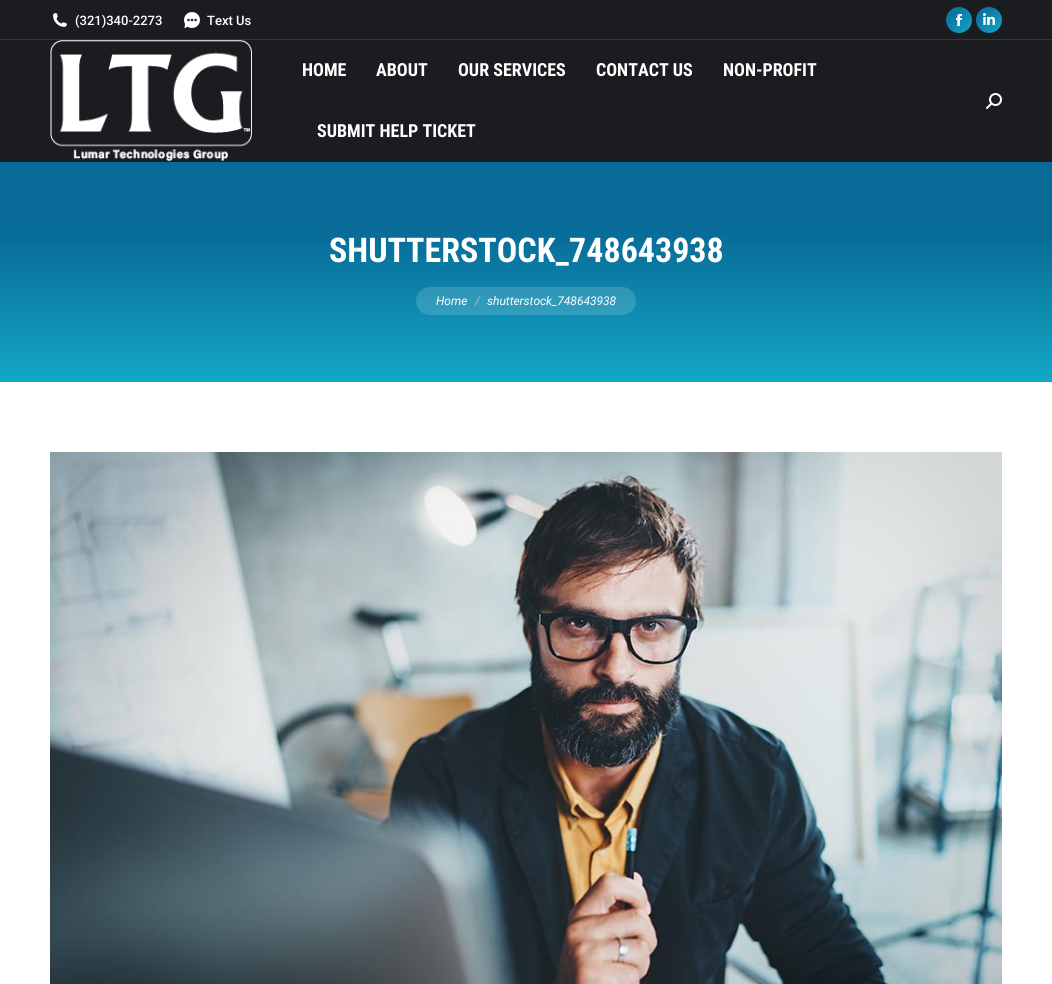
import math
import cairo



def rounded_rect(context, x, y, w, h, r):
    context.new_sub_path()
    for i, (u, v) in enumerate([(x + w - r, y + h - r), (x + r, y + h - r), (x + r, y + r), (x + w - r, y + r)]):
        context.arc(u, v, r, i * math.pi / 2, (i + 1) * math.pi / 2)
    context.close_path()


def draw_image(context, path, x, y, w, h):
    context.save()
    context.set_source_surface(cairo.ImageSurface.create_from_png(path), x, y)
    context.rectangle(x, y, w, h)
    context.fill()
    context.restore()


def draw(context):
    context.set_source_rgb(1, 1, 1)
    context.paint()
    context.set_source_rgb(26 / 255, 28 / 255, 32 / 255)
    context.rectangle(0, 0, 1052, 162)
    context.fill()
    draw_image(context, "images/1.png", 53, 13, 14, 14)
    draw_image(context, "images/2.png", 184, 12, 16, 16)
    gradient = cairo.LinearGradient(946, 7, 972, 33)
    gradient.add_color_stop_rgba(0.3, 13 / 255, 118 / 255, 166 / 255, 1)
    gradient.add_color_stop_rgba(1, 19 / 255, 168 / 255, 198 / 255, 1)
    context.set_source(gradient)
    context.arc(959, 20, 13, 0, 2 * math.pi)
    context.fill()
    draw_image(context, "images/3.png", 956, 14, 6, 12)
    gradient = cairo.LinearGradient(976, 7, 1002, 33)
    gradient.add_color_stop_rgba(0.3, 13 / 255, 118 / 255, 166 / 255, 1)
    gradient.add_color_stop_rgba(1, 19 / 255, 168 / 255, 198 / 255, 1)
    context.set_source(gradient)
    context.arc(989, 20, 13, 0, 2 * math.pi)
    context.fill()
    draw_image(context, "images/4.png", 983, 13, 12, 12)
    context.set_source_rgb(53 / 255, 55 / 255, 59 / 255)
    context.rectangle(0, 39, 1052, 1)
    context.fill()
    draw_image(context, "images/5.png", 50, 40, 202, 122)
    draw_image(context, "images/6.png", 986, 93, 16, 16)
    gradient = cairo.LinearGradient(526, 162, 526, 382)
    gradient.add_color_stop_rgba(0.3, 7 / 255, 106 / 255, 151 / 255, 1)
    gradient.add_color_stop_rgba(1, 19 / 255, 168 / 255, 198 / 255, 1)
    context.set_source(gradient)
    context.rectangle(0, 162, 1052, 220)
    context.fill()
    context.set_source_rgba(1, 1, 1, 0.15)
    rounded_rect(context, 416, 287, 220, 28, 14)
    context.fill()
    draw_image(context, "images/7.png", 50, 452, 952, 532)
    context.select_font_face("Roboto Medium")
    context.set_font_size(13)
    context.set_source_rgb(1, 1, 1)
    context.move_to(75, 25)
    context.show_text("(321)340-2273")
    context.move_to(207, 25)
    context.show_text("Text Us")
    context.select_font_face("Roboto Condensed", cairo.FontSlant.NORMAL, cairo.FontWeight.BOLD)
    context.set_font_size(18)
    context.move_to(302, 76)
    context.show_text("HOME")
    context.move_to(376, 76)
    context.show_text("ABOUT")
    context.move_to(458, 76)
    context.show_text("OUR SERVICES")
    context.move_to(596, 76)
    context.show_text("CONTACT US")
    context.move_to(723, 76)
    context.show_text("NON-PROFIT")
    context.move_to(317, 137)
    context.show_text("SUBMIT HELP TICKET")
    context.set_font_size(34)
    context.move_to(329, 262)
    context.show_text("SHUTTERSTOCK_748643938")
    context.select_font_face("Roboto", cairo.FontSlant.ITALIC)
    context.set_font_size(12)
    context.move_to(436, 305)
    context.show_text("Home")
    context.set_source_rgb(152 / 255, 204 / 255, 220 / 255)
    context.move_to(475, 305)
    context.show_text("/")
    context.set_source_rgb(1, 1, 1)
    context.move_to(487, 305)
    context.show_text("shutterstock_748643938")


surface = cairo.ImageSurface(cairo.Format.RGB24, 1052, 984)
context = cairo.Context(surface)
options = cairo.FontOptions()
options.set_hint_metrics(cairo.HintMetrics.OFF)
options.set_hint_style(cairo.HintStyle.NONE)
context.set_font_options(options)
context.set_miter_limit(4)
draw(context)
surface.write_to_png("out.png")
